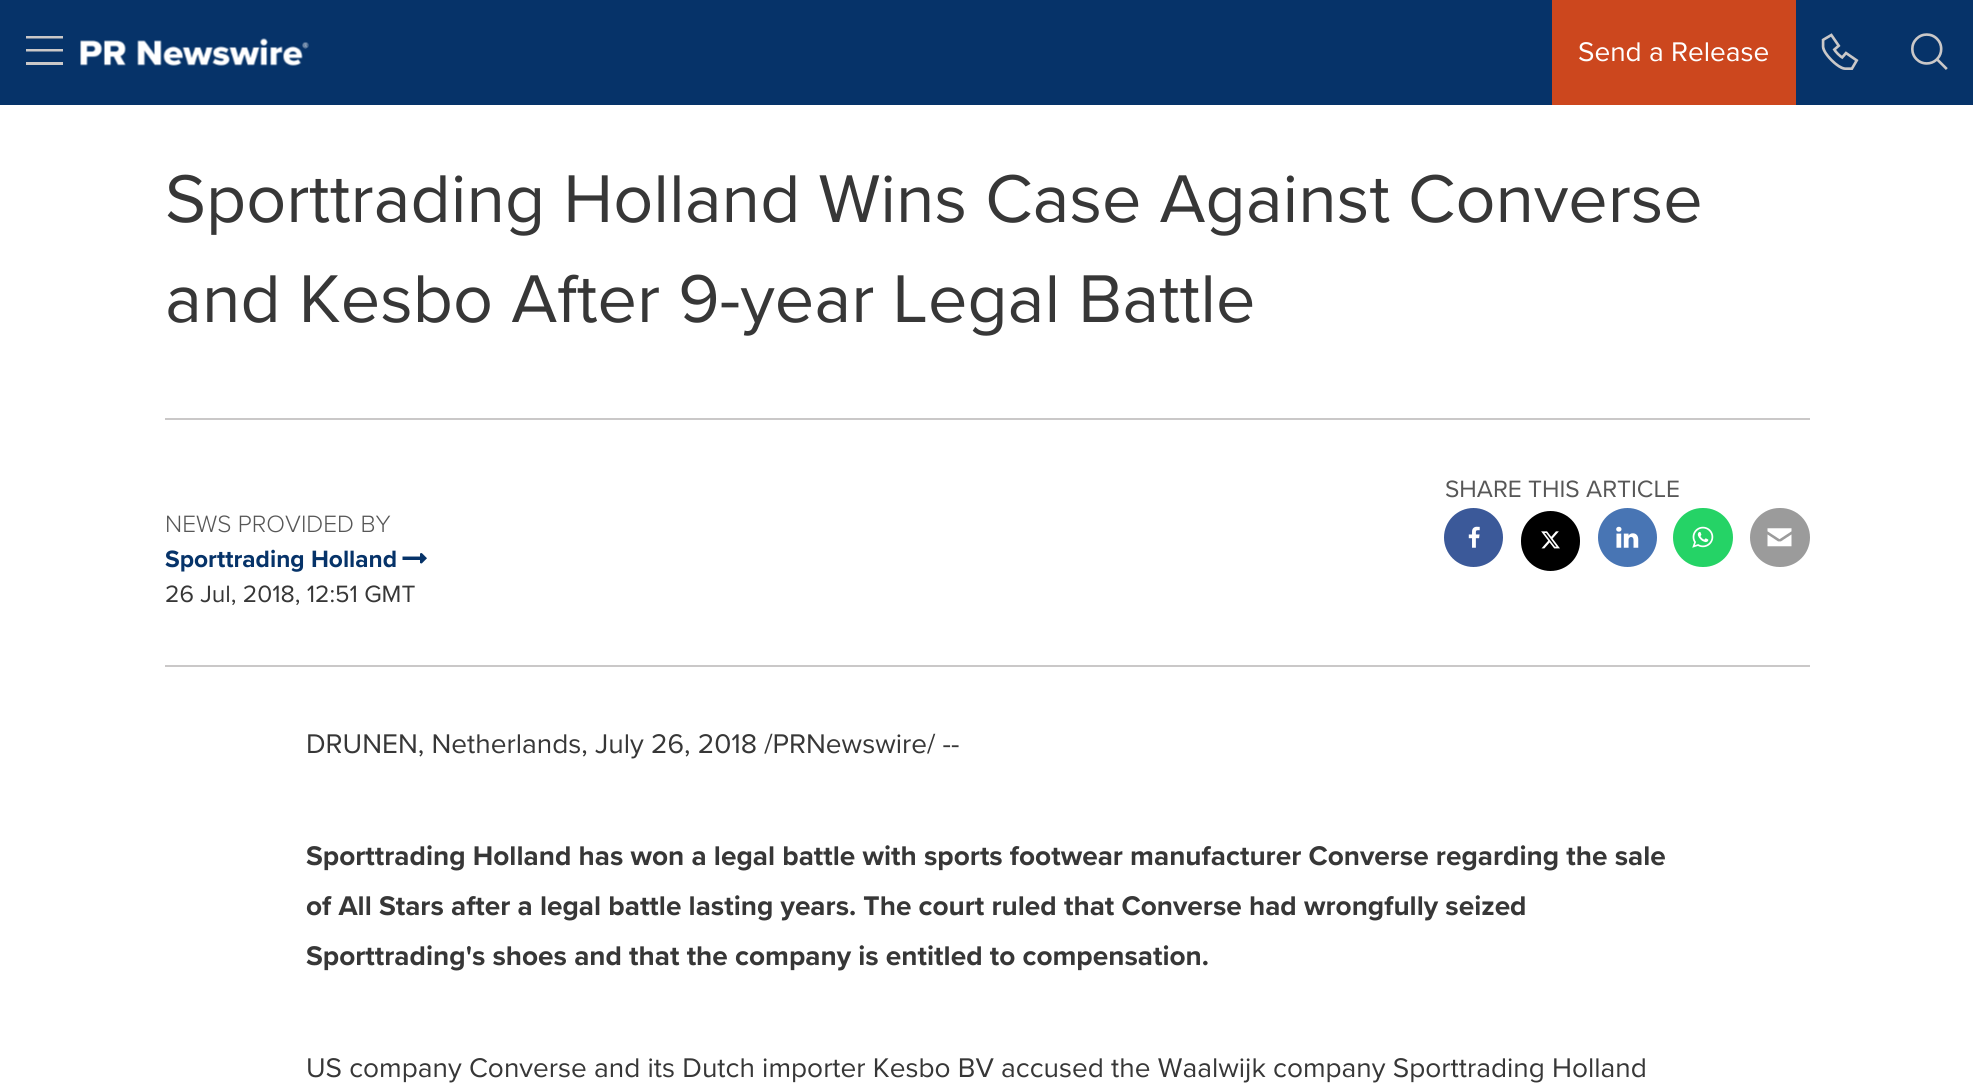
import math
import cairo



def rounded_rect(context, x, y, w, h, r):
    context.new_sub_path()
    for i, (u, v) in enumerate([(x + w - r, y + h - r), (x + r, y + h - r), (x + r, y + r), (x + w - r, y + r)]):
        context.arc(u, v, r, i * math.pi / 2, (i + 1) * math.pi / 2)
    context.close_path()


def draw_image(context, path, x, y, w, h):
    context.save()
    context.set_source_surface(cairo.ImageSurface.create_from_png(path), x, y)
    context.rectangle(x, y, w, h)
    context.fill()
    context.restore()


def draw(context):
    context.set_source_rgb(1, 1, 1)
    context.paint()
    context.set_source_rgb(6 / 255, 51 / 255, 105 / 255)
    context.rectangle(0, 0, 1973, 105)
    context.fill()
    context.set_source_rgb(202 / 255, 200 / 255, 200 / 255)
    context.new_path()
    context.move_to(63, 49)
    context.line_to(63, 51.5)
    context.line_to(26, 51.5)
    context.line_to(26, 49)
    context.close_path()
    context.move_to(63, 62)
    context.line_to(63, 65)
    context.line_to(26, 65)
    context.line_to(26, 62)
    context.close_path()
    context.move_to(63, 36)
    context.line_to(63, 38.5)
    context.line_to(26, 38.5)
    context.line_to(26, 36)
    context.close_path()
    context.fill()
    draw_image(context, "images/1.png", 80, 38, 229, 28)
    context.set_source_rgb(204 / 255, 71 / 255, 30 / 255)
    context.rectangle(1552, 0, 244, 105)
    context.fill()
    draw_image(context, "images/2.png", 1821, 33, 38, 37)
    draw_image(context, "images/3.png", 1911, 33, 37, 37)
    context.set_source_rgb(202 / 255, 200 / 255, 200 / 255)
    context.rectangle(165, 418, 1645, 2)
    context.fill()
    context.set_source_rgb(59 / 255, 89 / 255, 153 / 255)
    context.arc(1473.5, 537.5, 29.5, 0, 2 * math.pi)
    context.fill()
    draw_image(context, "images/4.png", 1468, 526, 12, 22)
    context.set_source_rgb(0, 0, 0)
    rounded_rect(context, 1521, 511, 59, 60, 29.5)
    context.fill()
    draw_image(context, "images/5.png", 1541, 531, 19, 18)
    context.set_source_rgb(72 / 255, 117 / 255, 180 / 255)
    context.arc(1627.5, 537.5, 29.5, 0, 2 * math.pi)
    context.fill()
    draw_image(context, "images/6.png", 1616, 526, 23, 22)
    context.set_source_rgb(37 / 255, 211 / 255, 102 / 255)
    rounded_rect(context, 1673, 508, 60, 59, 29.5)
    context.fill()
    draw_image(context, "images/7.png", 1692, 526, 22, 22)
    context.set_source_rgb(155 / 255, 155 / 255, 155 / 255)
    rounded_rect(context, 1750, 508, 60, 59, 29.5)
    context.fill()
    draw_image(context, "images/8.png", 1767, 528, 25, 19)
    draw_image(context, "images/9.png", 402, 553, 25, 11)
    context.set_source_rgb(202 / 255, 200 / 255, 200 / 255)
    context.rectangle(165, 665, 1645, 2)
    context.fill()
    context.select_font_face("Proxima Nova")
    context.set_font_size(28)
    context.set_source_rgb(1, 1, 1)
    context.move_to(1578, 61)
    context.show_text("Send a Release")
    context.set_font_size(70)
    context.set_source_rgb(55 / 255, 55 / 255, 55 / 255)
    context.move_to(165, 222)
    context.show_text("Sporttrading Holland Wins Case Against Converse")
    context.move_to(165, 322)
    context.show_text("and Kesbo After 9-year Legal Battle")
    context.set_font_size(24.5)
    context.set_source_rgb(87 / 255, 87 / 255, 87 / 255)
    context.move_to(1445, 497)
    context.show_text("SHARE THIS ARTICLE")
    context.select_font_face("Proxima Nova Light")
    context.move_to(165, 532)
    context.show_text("NEWS PROVIDED BY")
    context.select_font_face("Proxima Nova", cairo.FontSlant.NORMAL, cairo.FontWeight.BOLD)
    context.set_source_rgb(6 / 255, 51 / 255, 105 / 255)
    context.move_to(165, 567)
    context.show_text("Sporttrading Holland")
    context.select_font_face("Proxima Nova")
    context.set_source_rgb(55 / 255, 55 / 255, 55 / 255)
    context.move_to(165, 602)
    context.show_text("26 Jul, 2018, 12:51 GMT")
    context.set_font_size(28)
    context.move_to(306, 753)
    context.show_text("DRUNEN, Netherlands, July 26, 2018 /PRNewswire/ --")
    context.select_font_face("Proxima Nova", cairo.FontSlant.NORMAL, cairo.FontWeight.BOLD)
    context.move_to(306, 865)
    context.show_text("Sporttrading Holland has won a legal battle with sports footwear manufacturer Converse regarding the sale")
    context.move_to(306, 915)
    context.show_text("of All Stars after a legal battle lasting years. The court ruled that Converse had wrongfully seized")
    context.move_to(306, 965)
    context.show_text("Sporttrading's shoes and that the company is entitled to compensation.")
    context.select_font_face("Proxima Nova")
    context.move_to(306, 1077)
    context.show_text("US company Converse and its Dutch importer Kesbo BV accused the Waalwijk company Sporttrading Holland")


surface = cairo.ImageSurface(cairo.Format.RGB24, 1973, 1089)
context = cairo.Context(surface)
options = cairo.FontOptions()
options.set_hint_metrics(cairo.HintMetrics.OFF)
options.set_hint_style(cairo.HintStyle.NONE)
context.set_font_options(options)
context.set_miter_limit(4)
draw(context)
surface.write_to_png("out.png")
